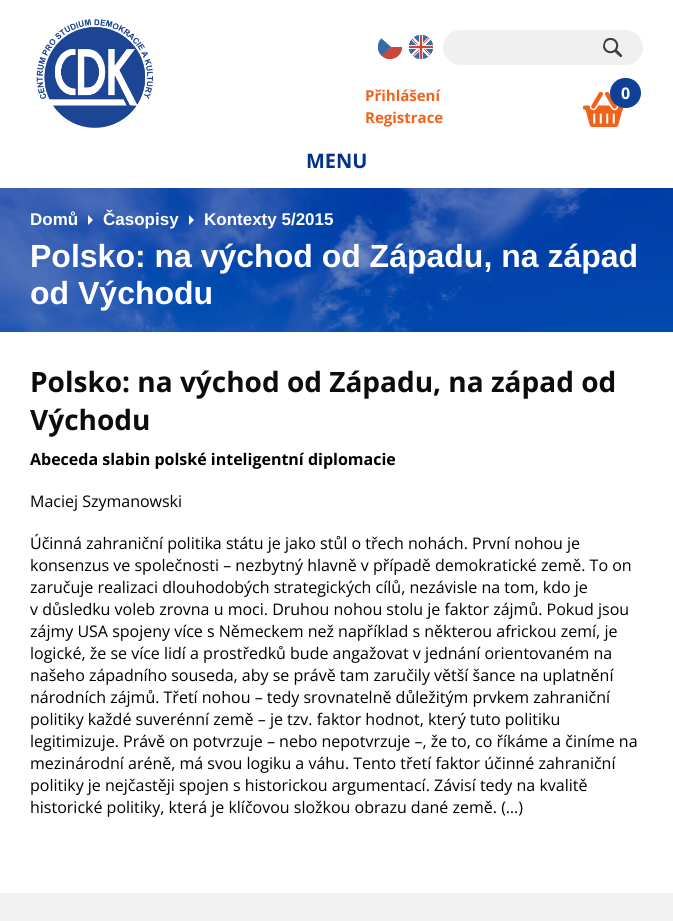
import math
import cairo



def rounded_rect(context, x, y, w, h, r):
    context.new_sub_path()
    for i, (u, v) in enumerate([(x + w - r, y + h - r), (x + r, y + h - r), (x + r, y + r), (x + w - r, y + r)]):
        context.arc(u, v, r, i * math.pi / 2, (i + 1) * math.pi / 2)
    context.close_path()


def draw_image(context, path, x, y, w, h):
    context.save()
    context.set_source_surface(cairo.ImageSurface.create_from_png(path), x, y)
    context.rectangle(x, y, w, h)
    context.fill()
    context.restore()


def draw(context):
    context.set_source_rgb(1, 1, 1)
    context.paint()
    draw_image(context, "images/1.png", 36, 19, 117, 109)
    draw_image(context, "images/2.png", 378, 38, 24, 21)
    draw_image(context, "images/3.png", 409, 35, 24, 24)
    context.set_source_rgb(240 / 255, 240 / 255, 240 / 255)
    rounded_rect(context, 443, 30, 200, 35, 17.5)
    context.fill()
    draw_image(context, "images/4.png", 603, 38, 19, 19)
    draw_image(context, "images/5.png", 583, 92, 40, 35)
    context.set_source_rgb(15 / 255, 64 / 255, 150 / 255)
    rounded_rect(context, 610, 78, 31, 30, 15)
    context.fill()
    draw_image(context, "images/8.png", 0, 188, 673, 144)
    draw_image(context, "images/6.png", 88, 215, 5, 10)
    draw_image(context, "images/7.png", 189, 215, 5, 10)
    context.set_source_rgb(242 / 255, 242 / 255, 242 / 255)
    context.rectangle(0, 893, 673, 28)
    context.fill()
    context.select_font_face("Open Sans", cairo.FontSlant.NORMAL, cairo.FontWeight.BOLD)
    context.set_font_size(15)
    context.set_source_rgb(241 / 255, 99 / 255, 26 / 255)
    context.move_to(365, 101)
    context.show_text("Přihlášení")
    context.move_to(365, 123)
    context.show_text("Registrace")
    context.set_font_size(16)
    context.set_source_rgb(1, 1, 1)
    context.move_to(621, 99)
    context.show_text("0")
    context.set_font_size(20)
    context.set_source_rgb(2 / 255, 50 / 255, 142 / 255)
    context.move_to(306, 168)
    context.show_text("MENU")
    context.select_font_face("Liberation Sans", cairo.FontSlant.NORMAL, cairo.FontWeight.BOLD)
    context.set_font_size(17)
    context.set_source_rgb(1, 1, 1)
    context.move_to(30, 225)
    context.show_text("Domů")
    context.move_to(103, 225)
    context.show_text("Časopisy")
    context.move_to(204, 225)
    context.show_text("Kontexty 5/2015")
    context.set_font_size(32)
    context.move_to(30, 267)
    context.show_text("Polsko: na východ od Západu, na západ")
    context.move_to(30, 304)
    context.show_text("od Východu")
    context.select_font_face("Open Sans", cairo.FontSlant.NORMAL, cairo.FontWeight.BOLD)
    context.set_font_size(28)
    context.set_source_rgb(12 / 255, 12 / 255, 12 / 255)
    context.move_to(30, 392)
    context.show_text("Polsko: na východ od Západu, na západ od")
    context.move_to(30, 430)
    context.show_text("Východu")
    context.set_font_size(16)
    context.set_source_rgb(0, 0, 0)
    context.move_to(30, 465)
    context.show_text("Abeceda slabin polské inteligentní diplomacie")
    context.select_font_face("Open Sans")
    context.move_to(30, 507)
    context.show_text("Maciej Szymanowski")
    context.move_to(30, 549)
    context.show_text("Účinná zahraniční politika státu je jako stůl o třech nohách. První nohou je")
    context.move_to(30, 571)
    context.show_text("konsenzus ve společnosti – nezbytný hlavně v případě demokratické země. To on")
    context.move_to(30, 593)
    context.show_text("zaručuje realizaci dlouhodobých strategických cílů, nezávisle na tom, kdo je")
    context.move_to(30, 615)
    context.show_text("v důsledku voleb zrovna u moci. Druhou nohou stolu je faktor zájmů. Pokud jsou")
    context.move_to(30, 637)
    context.show_text("zájmy USA spojeny více s Německem než například s některou africkou zemí, je")
    context.move_to(30, 659)
    context.show_text("logické, že se více lidí a prostředků bude angažovat v jednání orientovaném na")
    context.move_to(30, 681)
    context.show_text("našeho západního souseda, aby se právě tam zaručily větší šance na uplatnění")
    context.move_to(30, 703)
    context.show_text("národních zájmů. Třetí nohou – tedy srovnatelně důležitým prvkem zahraniční")
    context.move_to(30, 725)
    context.show_text("politiky každé suverénní země – je tzv. faktor hodnot, který tuto politiku")
    context.move_to(30, 747)
    context.show_text("legitimizuje. Právě on potvrzuje – nebo nepotvrzuje –, že to, co říkáme a činíme na")
    context.move_to(30, 769)
    context.show_text("mezinárodní aréně, má svou logiku a váhu. Tento třetí faktor účinné zahraniční")
    context.move_to(30, 791)
    context.show_text("politiky je nejčastěji spojen s historickou argumentací. Závisí tedy na kvalitě")
    context.move_to(30, 813)
    context.show_text("historické politiky, která je klíčovou složkou obrazu dané země. (…)")


surface = cairo.ImageSurface(cairo.Format.RGB24, 673, 921)
context = cairo.Context(surface)
options = cairo.FontOptions()
options.set_hint_metrics(cairo.HintMetrics.OFF)
options.set_hint_style(cairo.HintStyle.NONE)
context.set_font_options(options)
context.set_miter_limit(4)
draw(context)
surface.write_to_png("out.png")
